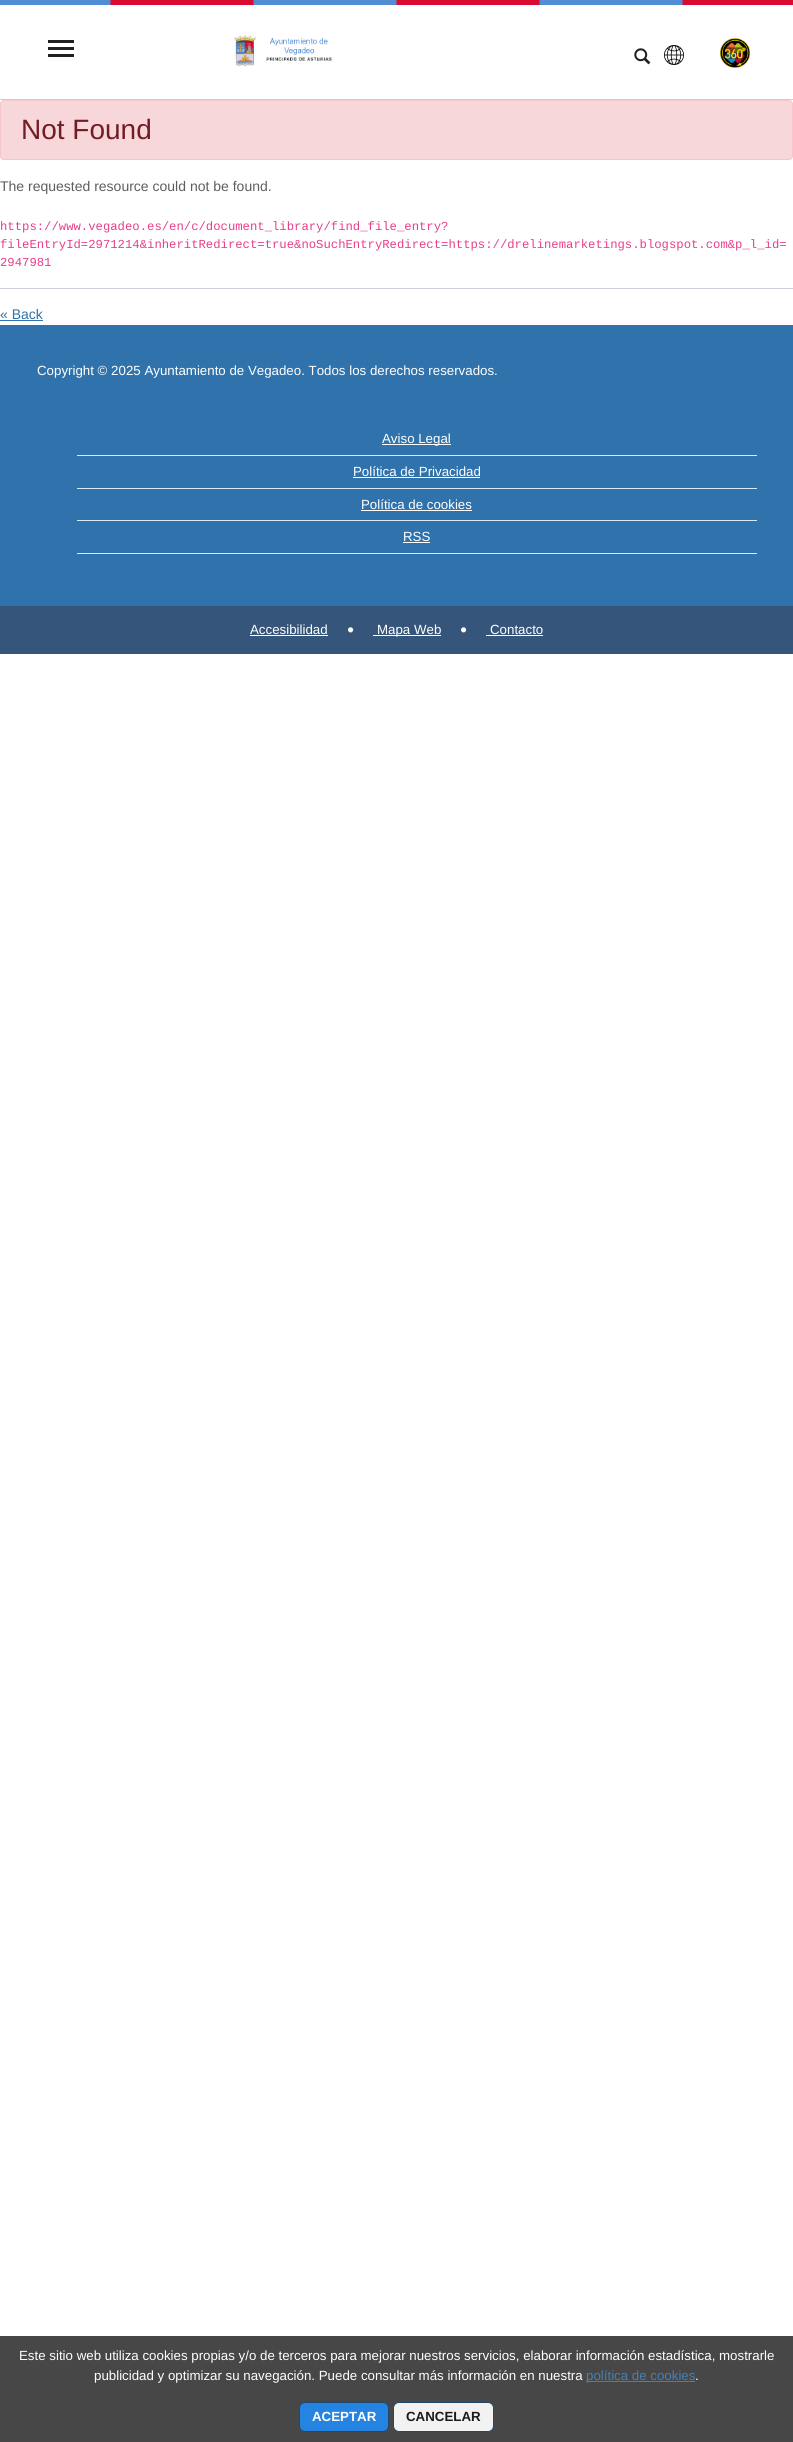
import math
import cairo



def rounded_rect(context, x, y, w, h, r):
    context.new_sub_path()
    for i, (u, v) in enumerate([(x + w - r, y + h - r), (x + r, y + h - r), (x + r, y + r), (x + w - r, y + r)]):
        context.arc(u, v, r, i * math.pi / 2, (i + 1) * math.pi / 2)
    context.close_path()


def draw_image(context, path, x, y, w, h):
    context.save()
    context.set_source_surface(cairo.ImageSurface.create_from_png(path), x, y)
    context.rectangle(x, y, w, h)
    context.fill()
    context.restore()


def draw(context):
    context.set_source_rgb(1, 1, 1)
    context.paint()
    draw_image(context, "images/1.png", 0, 0, 793, 5)
    context.set_source_rgb(204 / 255, 204 / 255, 204 / 255)
    context.rectangle(0, 99, 793, 1)
    context.fill()
    context.set_source_rgb(33 / 255, 33 / 255, 33 / 255)
    context.rectangle(48, 40, 26, 3)
    context.fill()
    context.rectangle(48, 47, 26, 3)
    context.fill()
    context.rectangle(48, 54, 26, 3)
    context.fill()
    draw_image(context, "images/2.png", 234, 35, 98, 31)
    draw_image(context, "images/3.png", 634, 48, 17, 17)
    draw_image(context, "images/4.png", 664, 45, 20, 20)
    draw_image(context, "images/5.png", 720, 38, 30, 30)
    context.set_source_rgb(248 / 255, 215 / 255, 218 / 255)
    rounded_rect(context, 0.5, 100.5, 792, 59, 3.5)
    context.fill_preserve()
    context.set_source_rgb(245 / 255, 198 / 255, 203 / 255)
    context.set_line_width(1)
    context.stroke()
    context.set_source_rgb(205 / 255, 206 / 255, 217 / 255)
    context.rectangle(0, 288, 793, 1)
    context.fill()
    context.set_source_rgb(48 / 255, 114 / 255, 171 / 255)
    context.rectangle(0, 320, 43, 1)
    context.fill()
    context.rectangle(0, 325, 793, 281)
    context.fill()
    context.set_source_rgb(215 / 255, 235 / 255, 245 / 255)
    context.rectangle(77, 455, 680, 1)
    context.fill()
    context.set_source_rgb(1, 1, 1)
    context.rectangle(382, 444, 69, 1)
    context.fill()
    context.set_source_rgb(215 / 255, 235 / 255, 245 / 255)
    context.rectangle(77, 488, 680, 1)
    context.fill()
    context.set_source_rgb(1, 1, 1)
    context.rectangle(353, 477, 127, 1)
    context.fill()
    context.set_source_rgb(215 / 255, 235 / 255, 245 / 255)
    context.rectangle(77, 520, 680, 1)
    context.fill()
    context.set_source_rgb(1, 1, 1)
    context.rectangle(361, 510, 111, 1)
    context.fill()
    context.set_source_rgb(215 / 255, 235 / 255, 245 / 255)
    context.rectangle(77, 553, 680, 1)
    context.fill()
    context.set_source_rgb(1, 1, 1)
    context.rectangle(403, 542, 27, 1)
    context.fill()
    context.set_source_rgb(54 / 255, 85 / 255, 122 / 255)
    context.rectangle(0, 606, 793, 48)
    context.fill()
    context.set_source_rgb(1, 1, 1)
    context.rectangle(250, 635, 78, 1)
    context.fill()
    draw_image(context, "images/6.png", 348, 627, 6, 6)
    context.rectangle(373, 635, 68, 1)
    context.fill()
    draw_image(context, "images/6.png", 461, 627, 6, 6)
    context.rectangle(486, 635, 57, 1)
    context.fill()
    context.set_source_rgb(71 / 255, 71 / 255, 71 / 255)
    context.rectangle(0, 2336, 793, 106)
    context.fill()
    context.set_source_rgb(69 / 255, 128 / 255, 179 / 255)
    context.rectangle(586, 2381, 109, 1)
    context.fill()
    context.set_source_rgb(37 / 255, 131 / 255, 225 / 255)
    rounded_rect(context, 299.5, 2402.5, 89, 29, 5.5)
    context.fill_preserve()
    context.set_source_rgb(33 / 255, 71 / 255, 109 / 255)
    context.stroke()
    context.set_source_rgb(242 / 255, 242 / 255, 242 / 255)
    rounded_rect(context, 393.5, 2402.5, 100, 29, 5.5)
    context.fill_preserve()
    context.set_source_rgb(33 / 255, 71 / 255, 109 / 255)
    context.stroke()
    context.select_font_face("Liberation Sans")
    context.set_font_size(28)
    context.set_source_rgb(114 / 255, 28 / 255, 36 / 255)
    context.move_to(21, 139)
    context.show_text("Not Found")
    context.set_font_size(14)
    context.set_source_rgb(94 / 255, 94 / 255, 94 / 255)
    context.move_to(0, 191)
    context.show_text("The requested resource could not be found.")
    context.select_font_face("Liberation Mono")
    context.set_font_size(12.25)
    context.set_source_rgb(232 / 255, 62 / 255, 140 / 255)
    context.move_to(0, 230)
    context.show_text("https://www.vegadeo.es/en/c/document_library/find_file_entry?")
    context.move_to(0, 248)
    context.show_text("fileEntryId=2971214&inheritRedirect=true&noSuchEntryRedirect=https://drelinemarketings.blogspot.com&p_l_id=")
    context.move_to(0, 266)
    context.show_text("2947981")
    context.select_font_face("Liberation Sans")
    context.set_font_size(14)
    context.set_source_rgb(48 / 255, 114 / 255, 171 / 255)
    context.move_to(0, 319)
    context.show_text("« Back")
    context.set_font_size(13.3)
    context.set_source_rgb(1, 1, 1)
    context.move_to(37, 375)
    context.show_text("Copyright © 2025 Ayuntamiento de Vegadeo. Todos los derechos reservados.")
    context.move_to(382, 443)
    context.show_text("Aviso Legal")
    context.move_to(353, 476)
    context.show_text("Política de Privacidad")
    context.move_to(361, 509)
    context.show_text("Política de cookies")
    context.move_to(403, 541)
    context.show_text("RSS")
    context.move_to(250, 634)
    context.show_text("Accesibilidad")
    context.move_to(377, 634)
    context.show_text("Mapa Web")
    context.move_to(490, 634)
    context.show_text("Contacto")
    context.move_to(19, 2360)
    context.show_text("Este sitio web utiliza cookies propias y/o de terceros para mejorar nuestros servicios, elaborar información estadística, mostrarle")
    context.move_to(94, 2380)
    context.show_text("publicidad y optimizar su navegación. Puede consultar más información en nuestra")
    context.set_source_rgb(69 / 255, 128 / 255, 179 / 255)
    context.move_to(586, 2380)
    context.show_text("política de cookies")
    context.set_source_rgb(1, 1, 1)
    context.move_to(695, 2380)
    context.show_text(".")
    context.select_font_face("Liberation Sans", cairo.FontSlant.NORMAL, cairo.FontWeight.BOLD)
    context.move_to(312, 2421)
    context.show_text("ACEPTAR")
    context.set_source_rgb(26 / 255, 26 / 255, 26 / 255)
    context.move_to(406, 2421)
    context.show_text("CANCELAR")


surface = cairo.ImageSurface(cairo.Format.RGB24, 793, 2442)
context = cairo.Context(surface)
options = cairo.FontOptions()
options.set_hint_metrics(cairo.HintMetrics.OFF)
options.set_hint_style(cairo.HintStyle.NONE)
context.set_font_options(options)
context.set_miter_limit(4)
draw(context)
surface.write_to_png("out.png")
